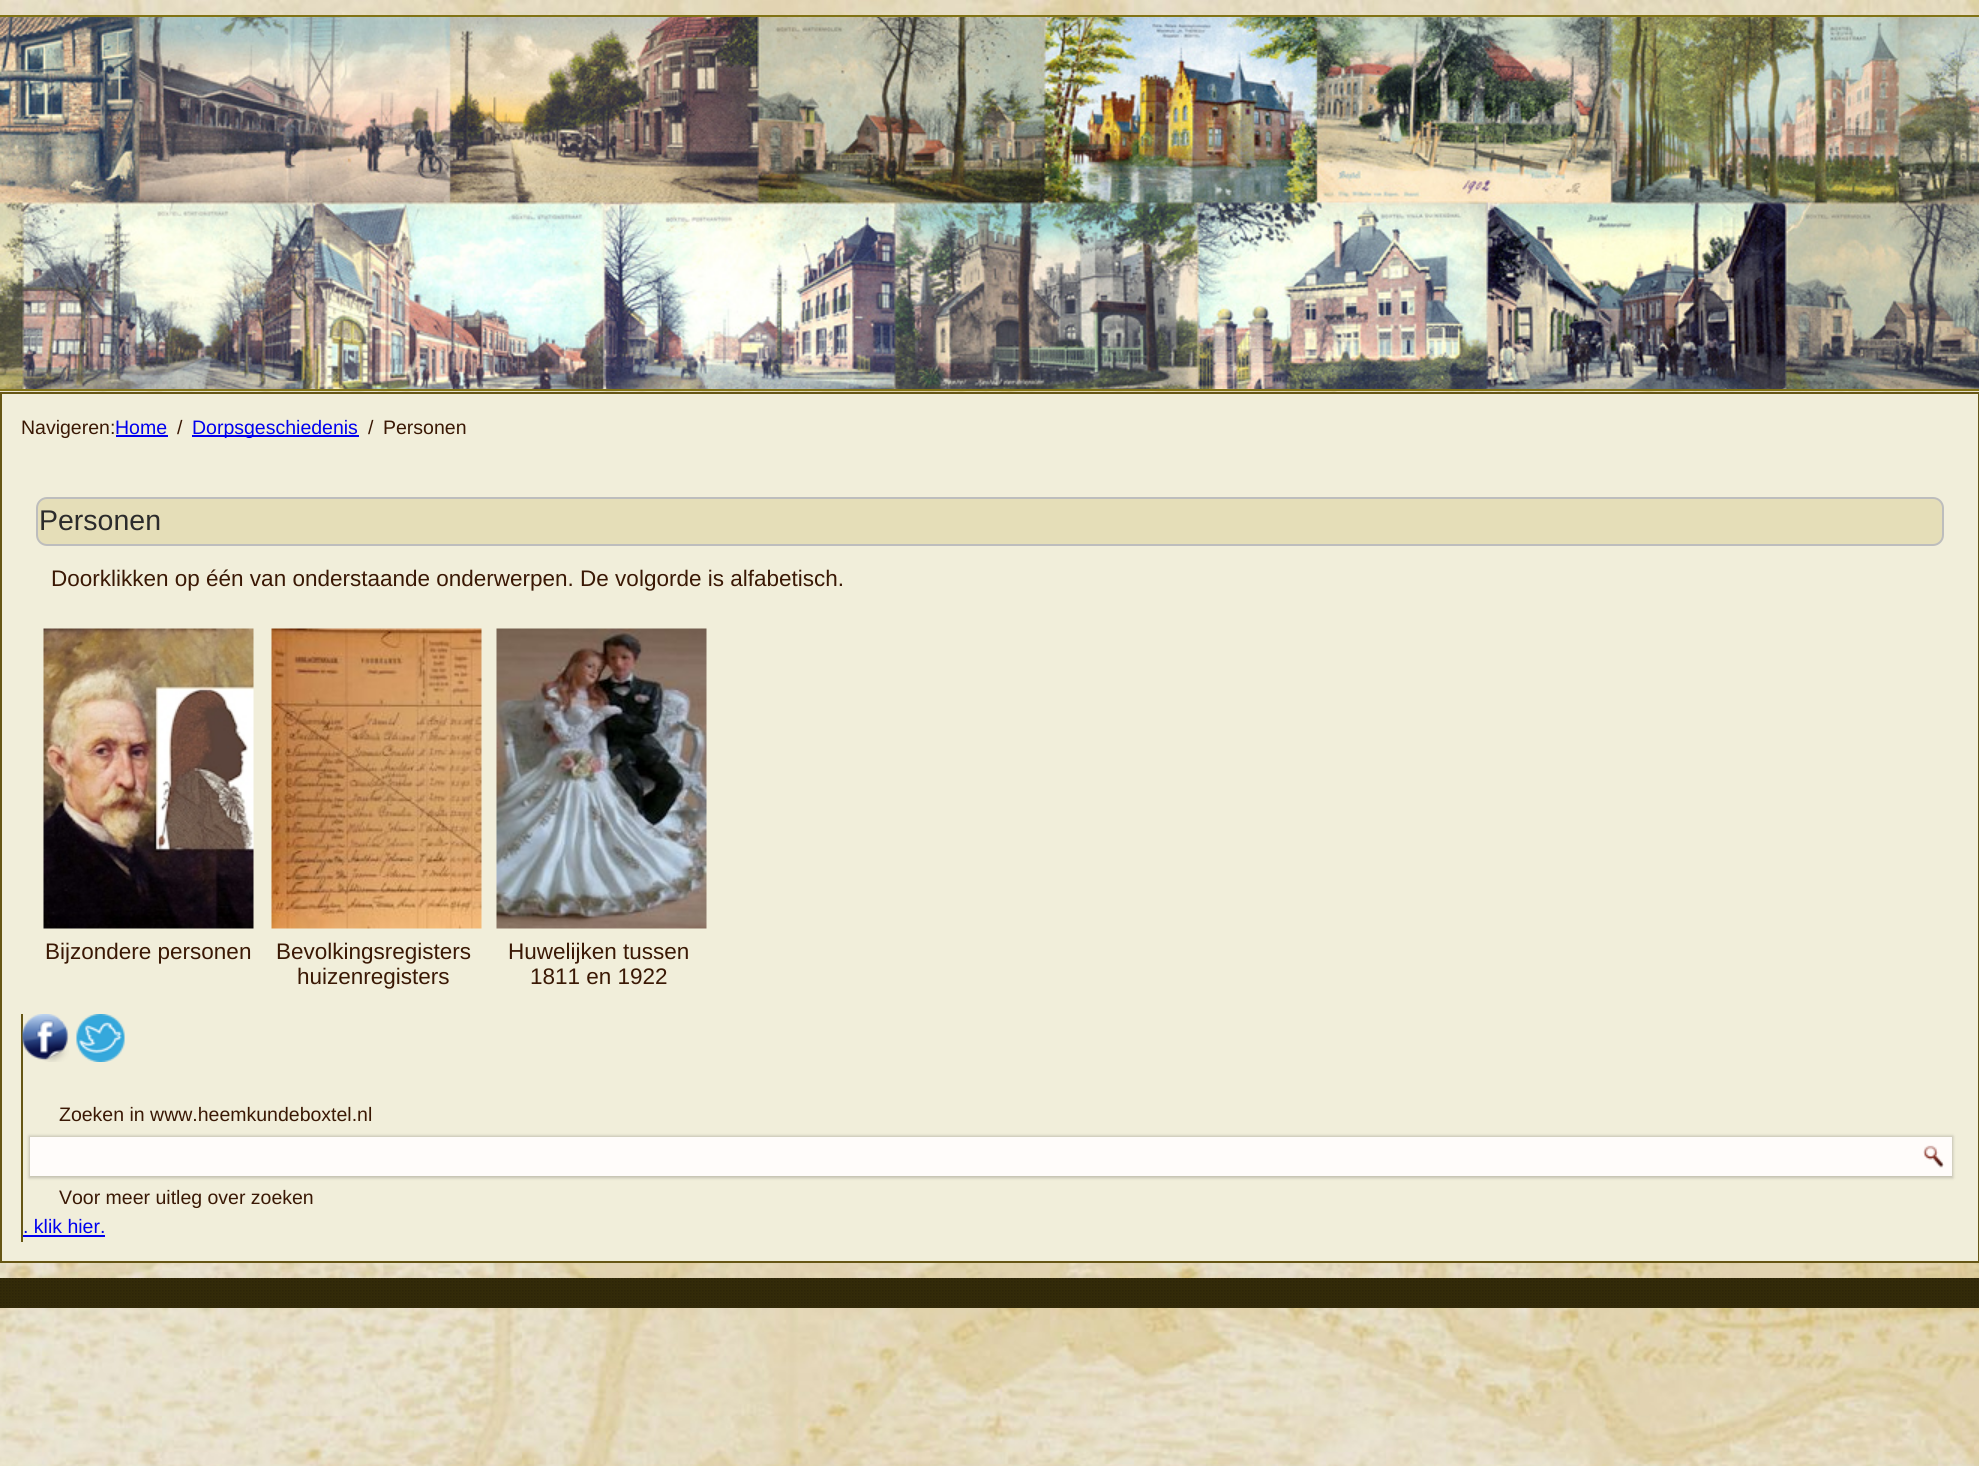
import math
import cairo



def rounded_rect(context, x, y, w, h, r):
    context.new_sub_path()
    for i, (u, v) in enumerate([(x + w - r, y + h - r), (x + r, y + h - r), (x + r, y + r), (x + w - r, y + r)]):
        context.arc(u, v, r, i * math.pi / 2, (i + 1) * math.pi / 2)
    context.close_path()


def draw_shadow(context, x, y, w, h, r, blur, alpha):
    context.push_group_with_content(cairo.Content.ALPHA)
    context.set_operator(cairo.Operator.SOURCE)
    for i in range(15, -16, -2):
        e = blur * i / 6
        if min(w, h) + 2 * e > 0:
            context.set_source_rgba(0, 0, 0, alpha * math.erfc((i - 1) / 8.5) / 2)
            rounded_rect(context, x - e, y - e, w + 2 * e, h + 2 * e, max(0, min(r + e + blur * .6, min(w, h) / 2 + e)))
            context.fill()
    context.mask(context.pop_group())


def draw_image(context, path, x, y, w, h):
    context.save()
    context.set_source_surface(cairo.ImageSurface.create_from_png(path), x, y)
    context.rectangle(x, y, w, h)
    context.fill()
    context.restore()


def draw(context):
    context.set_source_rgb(1, 1, 1)
    context.paint()
    draw_image(context, "images/1.png", 0, 0, 1979, 1466)
    draw_image(context, "images/2.png", 0, 17, 1979, 372)
    context.set_source_rgb(128 / 255, 114 / 255, 20 / 255)
    context.rectangle(0, 15, 1979, 2)
    context.fill()
    context.rectangle(0, 389, 1979, 2)
    context.fill()
    context.set_source_rgb(241 / 255, 238 / 255, 218 / 255)
    context.rectangle(1, 393, 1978, 869)
    context.fill_preserve()
    context.set_source_rgb(102 / 255, 86 / 255, 20 / 255)
    context.stroke()
    context.set_source_rgb(0, 0, 238 / 255)
    context.rectangle(116, 435, 52, 2)
    context.fill()
    context.rectangle(192, 435, 167, 2)
    context.fill()
    context.set_source_rgb(229 / 255, 222 / 255, 184 / 255)
    rounded_rect(context, 37, 498, 1906, 47, 10)
    context.fill_preserve()
    context.set_source_rgb(189 / 255, 189 / 255, 189 / 255)
    context.stroke()
    draw_image(context, "images/3.png", 43, 628, 211, 301)
    draw_image(context, "images/4.png", 271, 628, 211, 301)
    draw_image(context, "images/5.png", 496, 628, 211, 301)
    context.set_source_rgb(102 / 255, 86 / 255, 20 / 255)
    context.rectangle(21, 1014, 2, 228)
    context.fill()
    draw_image(context, "images/6.png", 22, 1014, 47, 48)
    draw_image(context, "images/7.png", 76, 1014, 49, 48)
    context.set_source_rgb(0, 0, 0)
    draw_shadow(context, 29, 1136, 1924, 42, 0, 1.5, 0.2)
    context.set_source_rgb(1, 252 / 255, 250 / 255)
    context.rectangle(30, 1137, 1922, 39)
    context.fill()
    draw_image(context, "images/8.png", 1923, 1145, 21, 23)
    context.set_source_rgb(0, 0, 238 / 255)
    context.rectangle(23, 1235, 82, 2)
    context.fill()
    context.set_source_rgb(51 / 255, 43 / 255, 10 / 255)
    context.rectangle(0, 1278, 1979, 30)
    context.fill()
    draw_image(context, "images/9.png", 0, 1278, 1978, 28)
    context.select_font_face("Liberation Sans")
    context.set_font_size(19.5)
    context.set_source_rgb(58 / 255, 24 / 255, 4 / 255)
    context.move_to(21, 434)
    context.show_text("Navigeren:")
    context.set_source_rgb(0, 0, 238 / 255)
    context.move_to(115, 434)
    context.show_text("Home")
    context.set_source_rgb(58 / 255, 24 / 255, 4 / 255)
    context.move_to(177, 434)
    context.show_text("/")
    context.set_source_rgb(0, 0, 238 / 255)
    context.move_to(192, 434)
    context.show_text("Dorpsgeschiedenis")
    context.set_source_rgb(58 / 255, 24 / 255, 4 / 255)
    context.move_to(368, 434)
    context.show_text("/")
    context.move_to(383, 434)
    context.show_text("Personen")
    context.set_font_size(28.5)
    context.set_source_rgb(43 / 255, 43 / 255, 43 / 255)
    context.move_to(39, 530)
    context.show_text("Personen")
    context.set_font_size(22.5)
    context.set_source_rgb(58 / 255, 24 / 255, 4 / 255)
    context.move_to(51, 586)
    context.show_text("Doorklikken op één van onderstaande onderwerpen. De volgorde is alfabetisch.")
    context.move_to(45, 959)
    context.show_text("Bijzondere personen")
    context.move_to(276, 959)
    context.show_text("Bevolkingsregisters")
    context.move_to(297, 984)
    context.show_text("huizenregisters")
    context.move_to(508, 959)
    context.show_text("Huwelijken tussen")
    context.move_to(530, 984)
    context.show_text("1811 en 1922")
    context.set_font_size(19.5)
    context.move_to(59, 1121)
    context.show_text("Zoeken in www.heemkundeboxtel.nl")
    context.move_to(59, 1204)
    context.show_text("Voor meer uitleg over zoeken")
    context.set_source_rgb(0, 0, 238 / 255)
    context.move_to(23, 1233)
    context.show_text(". klik hier.")


surface = cairo.ImageSurface(cairo.Format.RGB24, 1979, 1466)
context = cairo.Context(surface)
options = cairo.FontOptions()
options.set_hint_metrics(cairo.HintMetrics.OFF)
options.set_hint_style(cairo.HintStyle.NONE)
context.set_font_options(options)
context.set_miter_limit(4)
draw(context)
surface.write_to_png("out.png")
